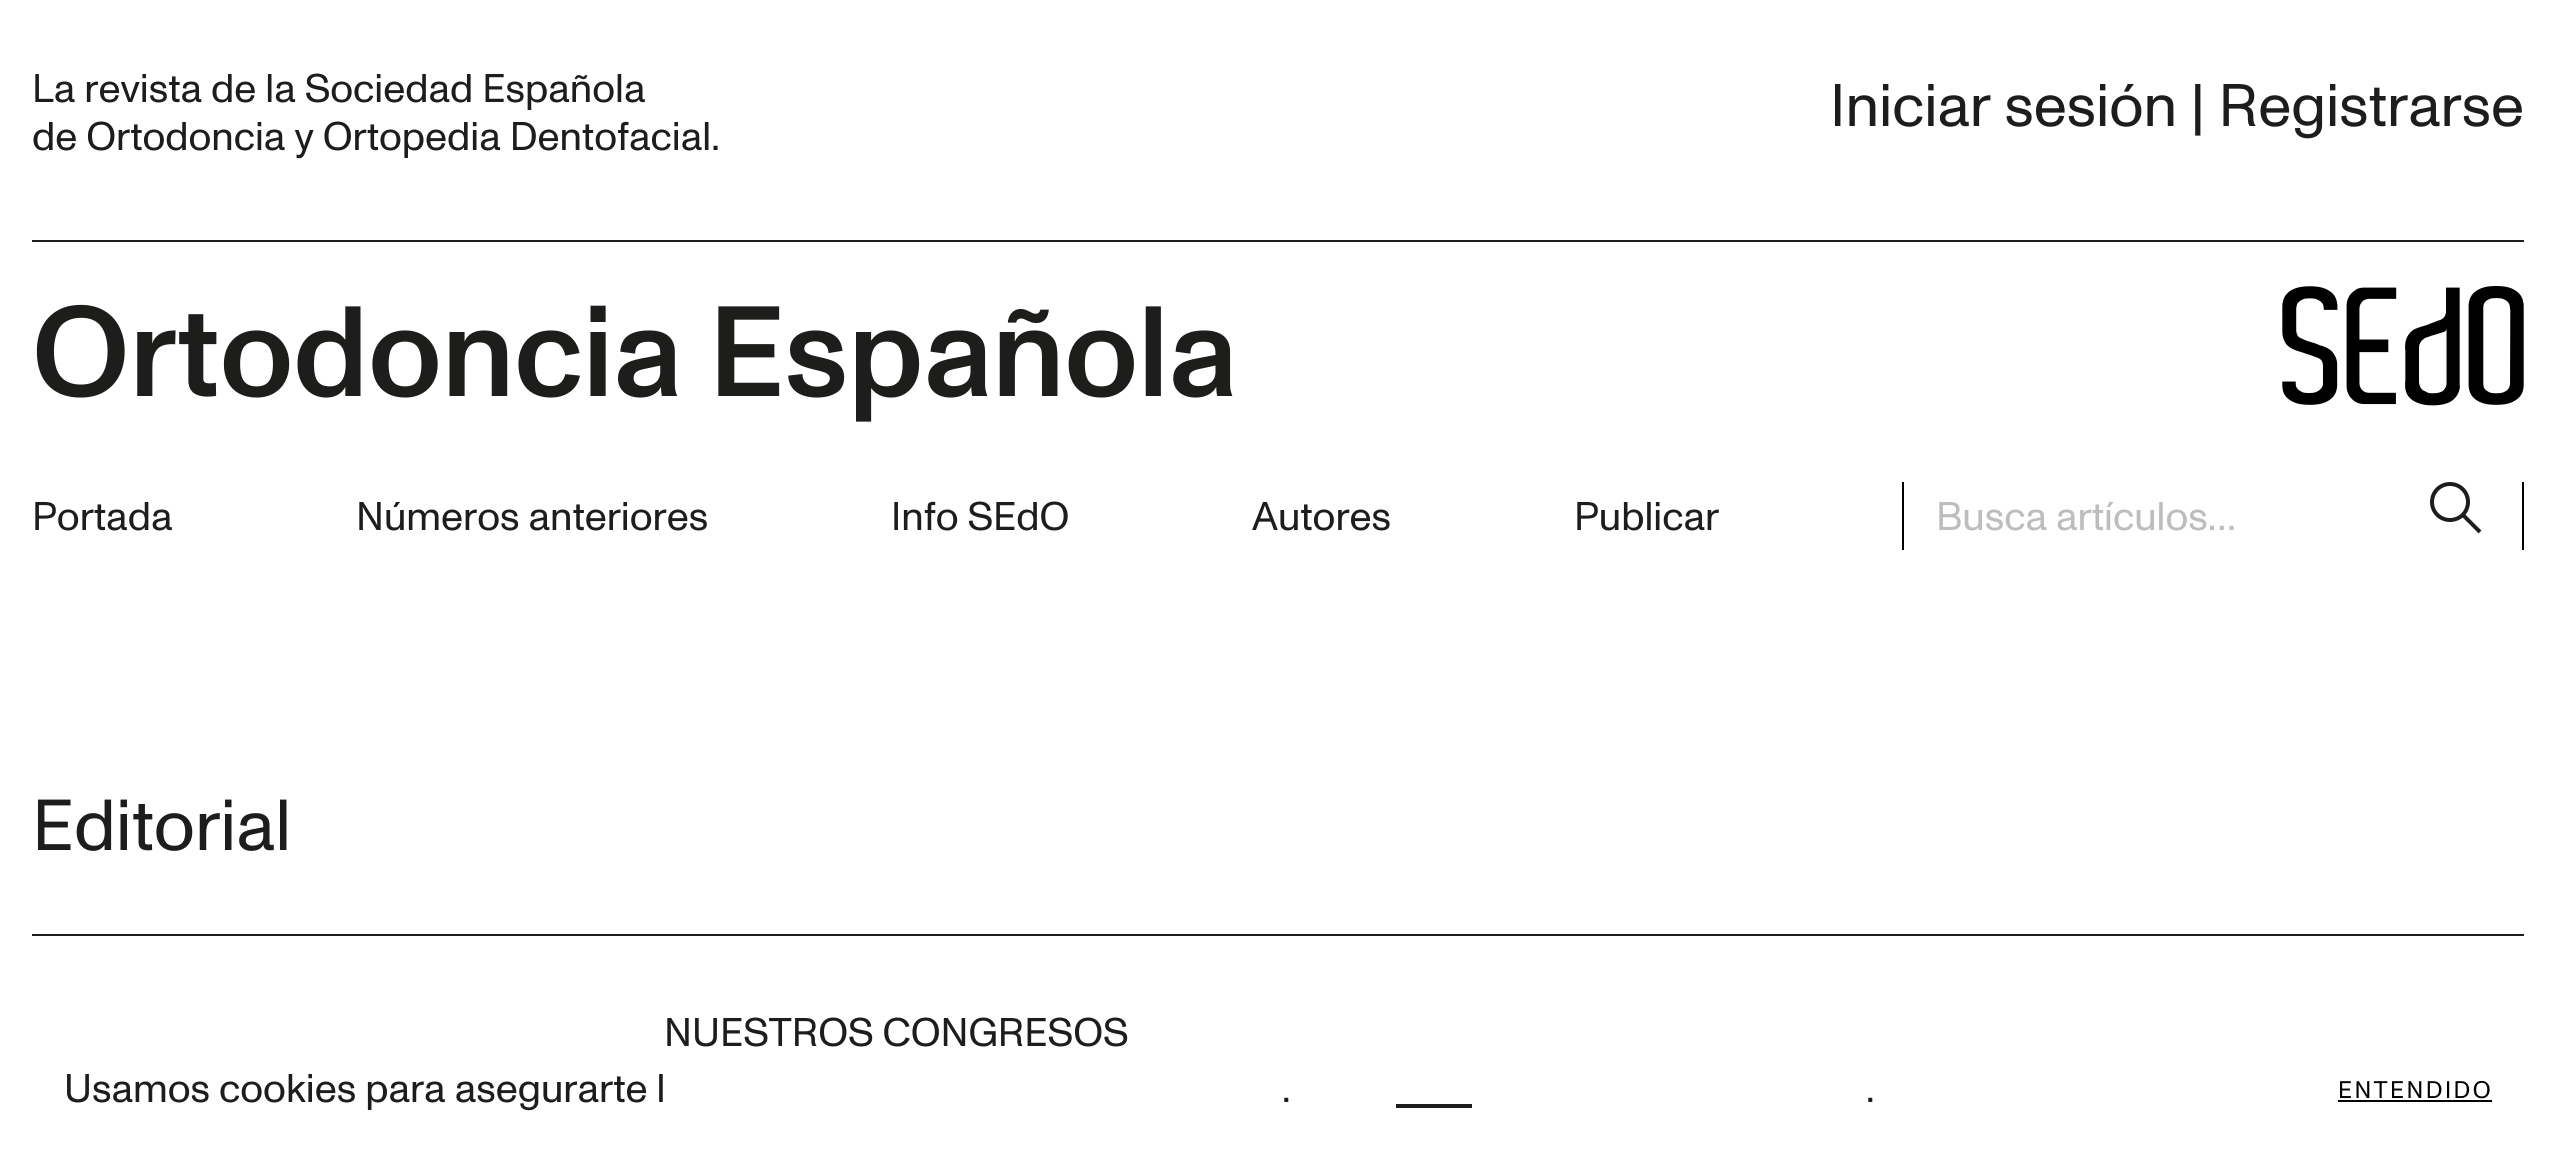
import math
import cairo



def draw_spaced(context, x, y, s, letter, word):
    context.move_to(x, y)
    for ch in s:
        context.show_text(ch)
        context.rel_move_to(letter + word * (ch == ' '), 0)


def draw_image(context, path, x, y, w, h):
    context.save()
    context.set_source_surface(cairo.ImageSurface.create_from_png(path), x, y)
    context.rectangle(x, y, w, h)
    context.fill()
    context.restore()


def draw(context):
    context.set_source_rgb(1, 1, 1)
    context.paint()
    context.set_source_rgb(29 / 255, 29 / 255, 27 / 255)
    context.rectangle(32, 240, 2492, 2)
    context.fill()
    draw_image(context, "images/1.png", 2282, 286, 242, 120)
    context.set_source_rgb(0, 0, 0)
    context.rectangle(2522, 482, 2, 68)
    context.fill()
    context.rectangle(1902, 482, 2, 68)
    context.fill()
    context.new_path()
    context.move_to(2462.5, 514.5)
    context.line_to(2480, 532)
    context.move_to(2450, 520)
    context.curve_to(2460, 520, 2468, 512, 2468, 502)
    context.curve_to(2468, 492, 2460, 484, 2450, 484)
    context.curve_to(2440, 484, 2432, 492, 2432, 502)
    context.curve_to(2432, 512, 2440, 520, 2450, 520)
    context.close_path()
    context.set_source_rgb(29 / 255, 29 / 255, 27 / 255)
    context.set_line_width(4)
    context.stroke()
    context.rectangle(32, 934, 2492, 2)
    context.fill()
    context.rectangle(1396, 1104, 76, 4)
    context.fill()
    context.set_source_rgb(0, 0, 0)
    context.rectangle(2338, 1100, 154, 2)
    context.fill()
    context.select_font_face("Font")
    context.set_font_size(40)
    context.set_source_rgb(29 / 255, 29 / 255, 27 / 255)
    context.move_to(32, 102)
    context.show_text("La revista de la Sociedad Española")
    context.move_to(32, 150)
    context.show_text("de Ortodoncia y Ortopedia Dentofacial.")
    context.set_font_size(60)
    context.move_to(1830, 126)
    context.show_text("Iniciar sesión | Registrarse")
    context.select_font_face("Font Medium")
    context.set_font_size(128)
    context.move_to(32, 396)
    context.show_text("Ortodoncia Española")
    context.select_font_face("Font")
    context.set_font_size(40)
    context.move_to(32, 530)
    context.show_text("Portada")
    context.move_to(356, 530)
    context.show_text("Números anteriores")
    context.move_to(891, 530)
    context.show_text("Info SEdO")
    context.move_to(1252, 530)
    context.show_text("Autores")
    context.move_to(1574, 530)
    context.show_text("Publicar")
    context.set_source_rgb(189 / 255, 189 / 255, 189 / 255)
    context.move_to(1936, 530)
    context.show_text("Busca artículos…")
    context.set_font_size(72)
    context.set_source_rgb(29 / 255, 29 / 255, 27 / 255)
    context.move_to(32, 850)
    context.show_text("Editorial")
    context.set_font_size(40)
    context.move_to(664, 1046)
    context.show_text("NUESTROS CONGRESOS")
    context.move_to(64, 1102)
    context.show_text("Usamos cookies para asegurarte l")
    context.move_to(1282, 1102)
    context.show_text(".")
    context.move_to(1866, 1102)
    context.show_text(".")
    context.set_font_size(24)
    context.set_source_rgb(0, 0, 0)
    draw_spaced(context, 2338, 1098, "ENTENDIDO", 2.5, 0)


surface = cairo.ImageSurface(cairo.Format.RGB24, 2556, 1152)
context = cairo.Context(surface)
options = cairo.FontOptions()
options.set_hint_metrics(cairo.HintMetrics.OFF)
options.set_hint_style(cairo.HintStyle.NONE)
context.set_font_options(options)
context.set_miter_limit(4)
draw(context)
surface.write_to_png("out.png")
